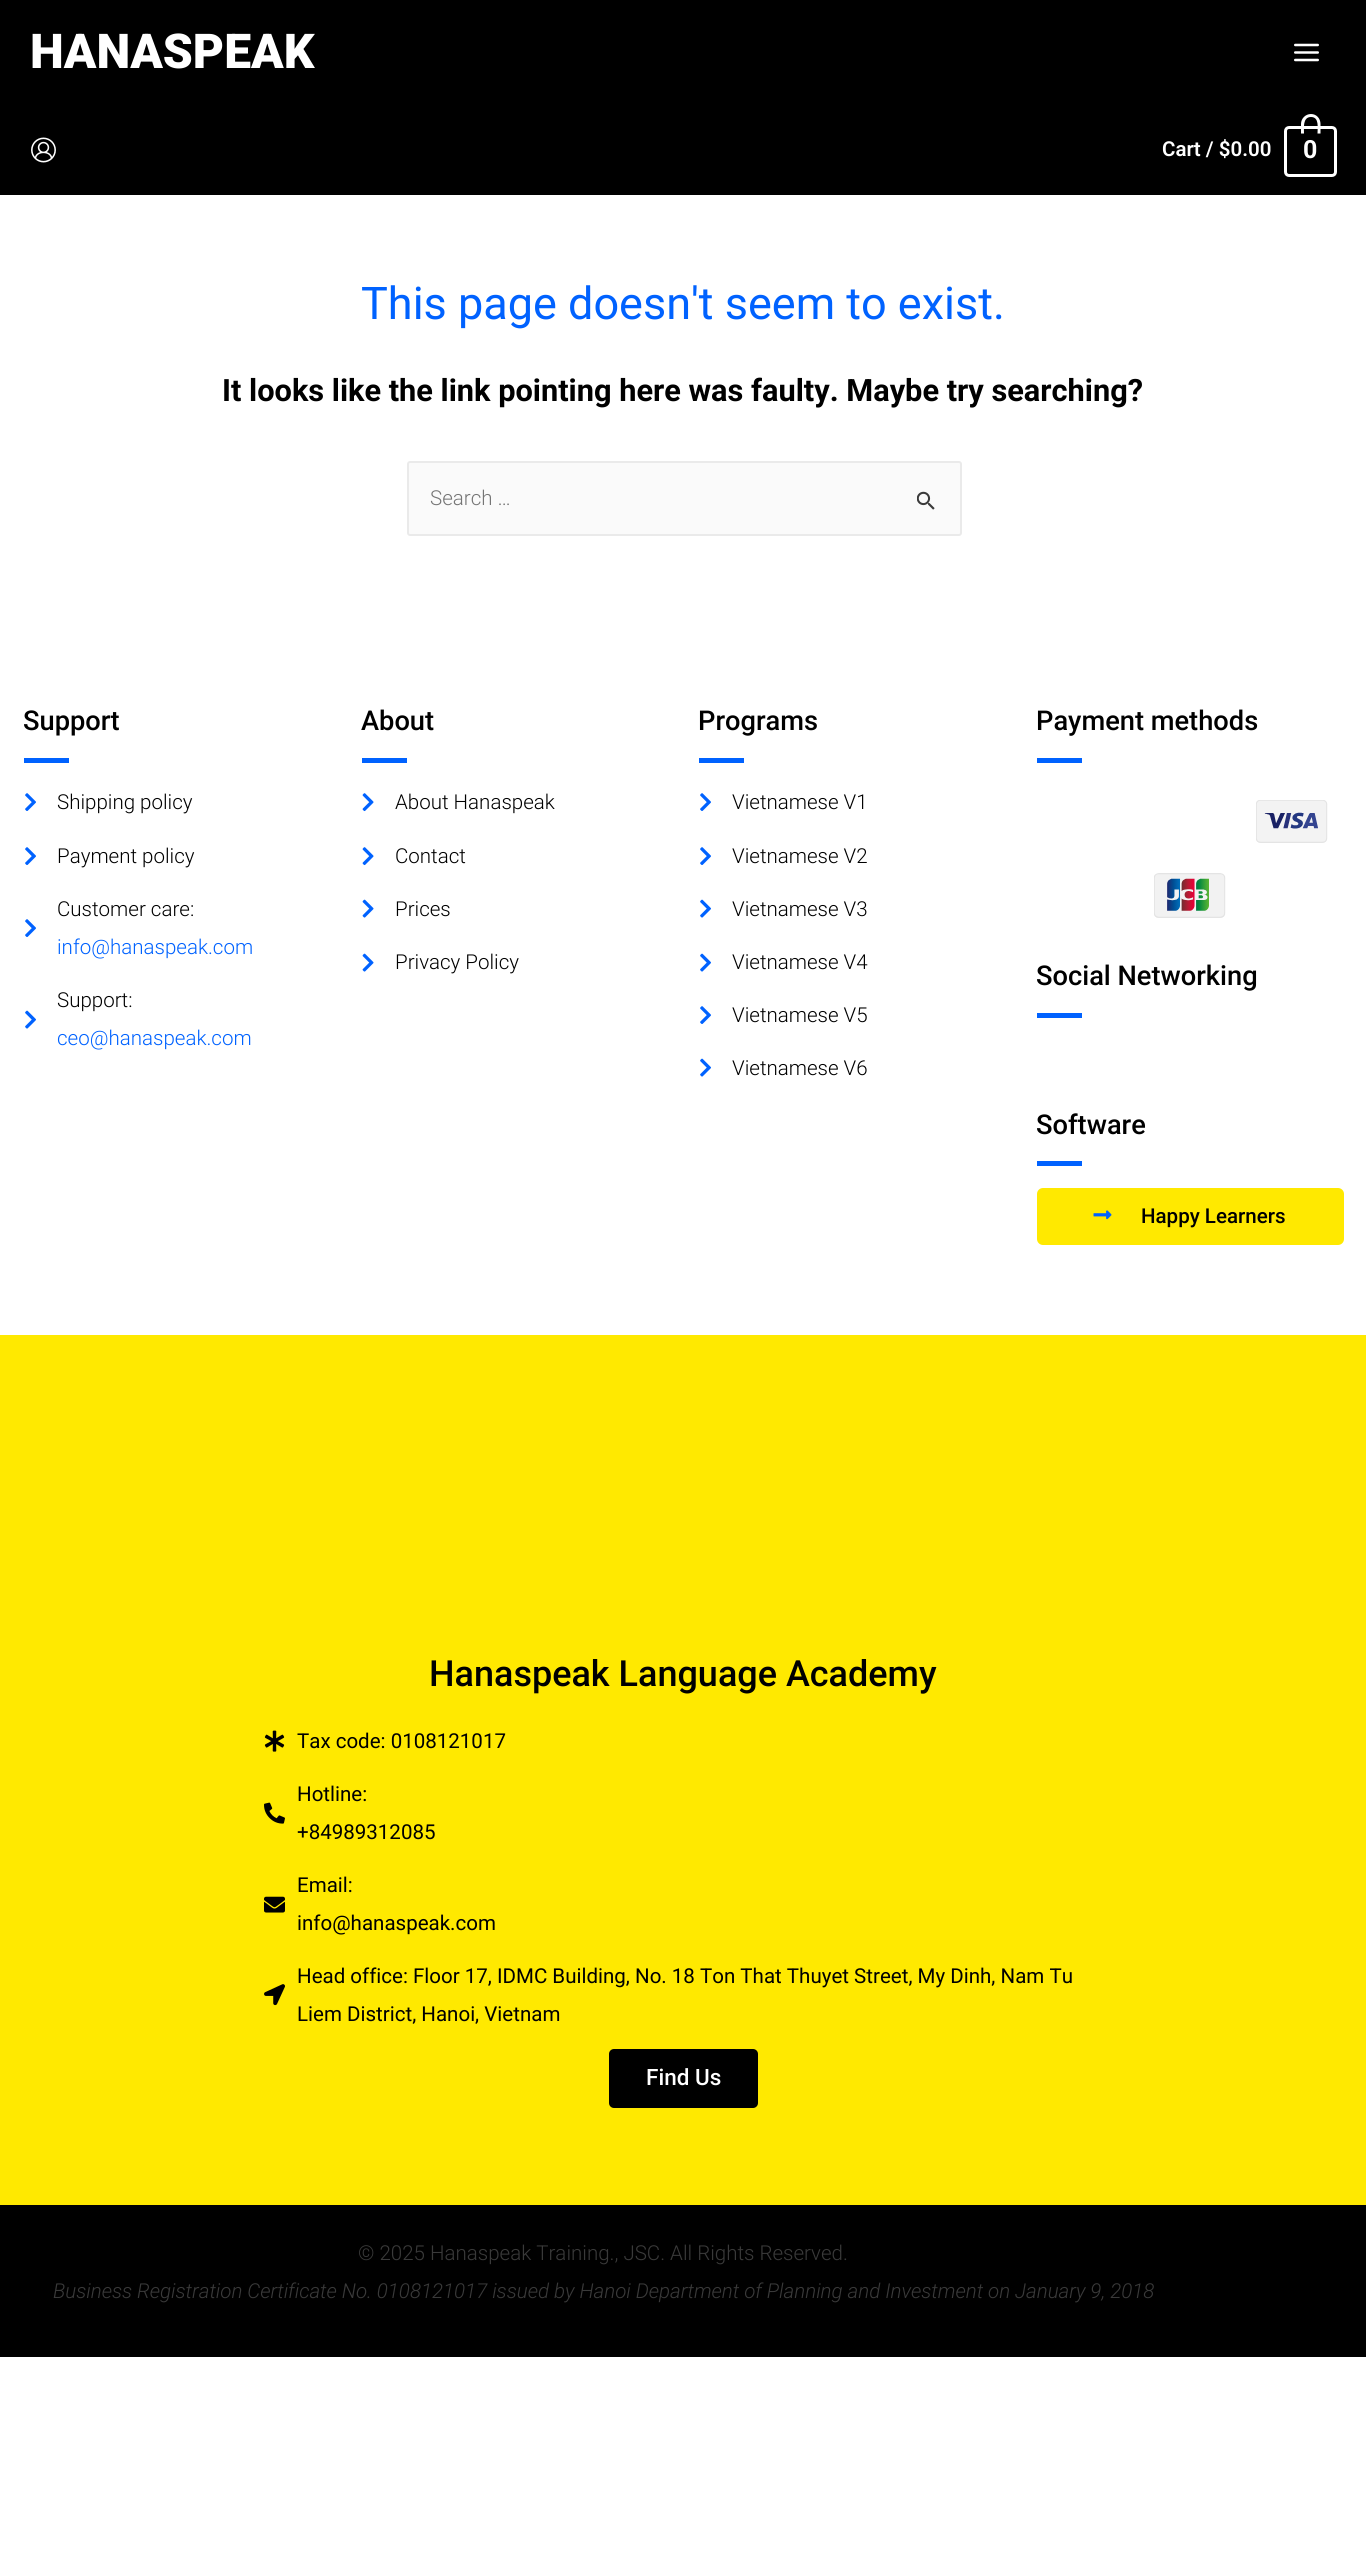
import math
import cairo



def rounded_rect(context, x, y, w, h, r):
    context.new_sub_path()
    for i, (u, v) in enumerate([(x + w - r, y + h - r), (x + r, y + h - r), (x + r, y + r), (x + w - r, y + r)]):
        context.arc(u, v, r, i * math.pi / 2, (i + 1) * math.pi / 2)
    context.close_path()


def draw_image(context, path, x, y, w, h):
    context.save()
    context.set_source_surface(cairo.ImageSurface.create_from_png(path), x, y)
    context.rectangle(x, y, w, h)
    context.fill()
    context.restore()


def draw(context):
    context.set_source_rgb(1, 1, 1)
    context.paint()
    context.set_source_rgb(0, 0, 0)
    context.rectangle(0, 0, 1366, 195)
    context.fill()
    draw_image(context, "images/1.png", 1294, 43, 25, 19)
    draw_image(context, "images/2.png", 31, 137, 25, 26)
    rounded_rect(context, 1285.5, 127.5, 50, 48, 3.5)
    context.set_source_rgb(1, 1, 1)
    context.set_line_width(3)
    context.stroke()
    context.set_fill_rule(cairo.FillRule.EVEN_ODD)
    context.new_path()
    context.move_to(1311, 114)
    context.curve_to(1316.5, 114, 1320.5, 118.5, 1320.5, 124)
    context.line_to(1320.5, 133.5)
    context.line_to(1301, 133.5)
    context.line_to(1301, 124)
    context.curve_to(1301, 118.5, 1305.5, 114, 1311, 114)
    context.close_path()
    context.move_to(1311, 117)
    context.curve_to(1319.5, 117, 1317.5, 128, 1317.5, 133.5)
    context.line_to(1304, 133.5)
    context.curve_to(1304, 128, 1302.5, 117, 1311, 117)
    context.close_path()
    context.fill()
    context.set_source_rgb(250 / 255, 250 / 255, 250 / 255)
    rounded_rect(context, 408, 462, 553, 73, 2)
    context.fill_preserve()
    context.set_source_rgb(234 / 255, 234 / 255, 234 / 255)
    context.set_line_width(2)
    context.stroke()
    draw_image(context, "images/3.png", 917, 491, 18, 19)
    context.set_source_rgb(0, 98 / 255, 1)
    context.rectangle(24, 758, 45, 5)
    context.fill()
    draw_image(context, "images/4.png", 25, 793, 11, 18)
    draw_image(context, "images/4.png", 25, 847, 11, 18)
    draw_image(context, "images/4.png", 25, 919, 11, 18)
    draw_image(context, "images/5.png", 25, 1010, 11, 19)
    context.rectangle(362, 758, 45, 5)
    context.fill()
    draw_image(context, "images/6.png", 362, 793, 12, 19)
    draw_image(context, "images/6.png", 362, 847, 12, 19)
    draw_image(context, "images/7.png", 362, 899, 12, 19)
    draw_image(context, "images/7.png", 362, 953, 12, 19)
    context.rectangle(699, 758, 45, 5)
    context.fill()
    draw_image(context, "images/4.png", 700, 793, 11, 18)
    draw_image(context, "images/4.png", 700, 847, 11, 18)
    draw_image(context, "images/5.png", 700, 899, 11, 19)
    draw_image(context, "images/5.png", 700, 953, 11, 19)
    draw_image(context, "images/4.png", 700, 1006, 11, 18)
    draw_image(context, "images/5.png", 700, 1058, 11, 19)
    context.rectangle(1037, 758, 45, 5)
    context.fill()
    draw_image(context, "images/8.png", 1256, 800, 72, 43)
    draw_image(context, "images/9.png", 1154, 873, 72, 45)
    context.rectangle(1037, 1013, 45, 5)
    context.fill()
    context.rectangle(1037, 1161, 45, 5)
    context.fill()
    context.set_source_rgb(1, 233 / 255, 0)
    rounded_rect(context, 1037, 1188, 307, 57, 6)
    context.fill()
    draw_image(context, "images/10.png", 1093, 1210, 19, 10)
    context.rectangle(0, 1335, 1366, 870)
    context.fill()
    draw_image(context, "images/11.png", 264, 1730, 21, 22)
    draw_image(context, "images/12.png", 264, 1802, 21, 22)
    draw_image(context, "images/13.png", 264, 1896, 21, 17)
    draw_image(context, "images/14.png", 264, 1984, 21, 22)
    context.set_source_rgb(0, 0, 0)
    rounded_rect(context, 609, 2049, 149, 59, 5)
    context.fill()
    context.rectangle(0, 2205, 1366, 152)
    context.fill()
    context.select_font_face("Roboto Black")
    context.set_font_size(48)
    context.set_source_rgb(1, 1, 1)
    context.move_to(30, 68)
    context.show_text("HANASPEAK")
    context.select_font_face("Roboto SemiBold")
    context.set_font_size(20.52)
    context.move_to(1162, 156)
    context.show_text("Cart / $0.00")
    context.select_font_face("Roboto", cairo.FontSlant.NORMAL, cairo.FontWeight.BOLD)
    context.set_font_size(25)
    context.move_to(1303, 158)
    context.show_text("0")
    context.select_font_face("Roboto")
    context.set_font_size(45)
    context.set_source_rgb(0, 98 / 255, 1)
    context.move_to(361, 319)
    context.show_text("This page doesn't seem to exist.")
    context.select_font_face("Roboto", cairo.FontSlant.NORMAL, cairo.FontWeight.BOLD)
    context.set_font_size(30.75)
    context.set_source_rgb(0, 0, 0)
    context.move_to(222, 401)
    context.show_text("It looks like the link pointing here was faulty. Maybe try searching?")
    context.select_font_face("Roboto Light")
    context.set_font_size(20.52)
    context.set_source_rgb(117 / 255, 117 / 255, 117 / 255)
    context.move_to(430, 505)
    context.show_text("Search …")
    context.select_font_face("Roboto Medium")
    context.set_font_size(27.25)
    context.set_source_rgb(0, 0, 0)
    context.move_to(23, 730)
    context.show_text("Support")
    context.select_font_face("Roboto Light")
    context.set_font_size(20.52)
    context.move_to(57, 809)
    context.show_text("Shipping policy")
    context.move_to(57, 863)
    context.show_text("Payment policy")
    context.move_to(57, 916)
    context.show_text("Customer care:")
    context.set_source_rgb(0, 98 / 255, 1)
    context.move_to(57, 954)
    context.show_text("info@hanaspeak.com")
    context.set_source_rgb(0, 0, 0)
    context.move_to(57, 1007)
    context.show_text("Support:")
    context.set_source_rgb(0, 98 / 255, 1)
    context.move_to(57, 1045)
    context.show_text("ceo@hanaspeak.com")
    context.select_font_face("Roboto Medium")
    context.set_font_size(27.25)
    context.set_source_rgb(0, 0, 0)
    context.move_to(361, 730)
    context.show_text("About")
    context.select_font_face("Roboto Light")
    context.set_font_size(20.52)
    context.move_to(395, 809)
    context.show_text("About Hanaspeak")
    context.move_to(395, 863)
    context.show_text("Contact")
    context.move_to(395, 916)
    context.show_text("Prices")
    context.move_to(395, 969)
    context.show_text("Privacy Policy")
    context.select_font_face("Roboto Medium")
    context.set_font_size(27.25)
    context.move_to(698, 730)
    context.show_text("Programs")
    context.select_font_face("Roboto Light")
    context.set_font_size(20.52)
    context.move_to(732, 809)
    context.show_text("Vietnamese V1")
    context.move_to(732, 863)
    context.show_text("Vietnamese V2")
    context.move_to(732, 916)
    context.show_text("Vietnamese V3")
    context.move_to(732, 969)
    context.show_text("Vietnamese V4")
    context.move_to(732, 1022)
    context.show_text("Vietnamese V5")
    context.move_to(732, 1075)
    context.show_text("Vietnamese V6")
    context.select_font_face("Roboto Medium")
    context.set_font_size(27.25)
    context.move_to(1036, 730)
    context.show_text("Payment methods")
    context.move_to(1036, 985)
    context.show_text("Social Networking")
    context.move_to(1036, 1134)
    context.show_text("Software")
    context.set_font_size(20.52)
    context.move_to(1141, 1223)
    context.show_text("Happy Learners")
    context.set_font_size(36)
    context.move_to(429, 1686)
    context.show_text("Hanaspeak Language Academy")
    context.select_font_face("Roboto")
    context.set_font_size(20.52)
    context.move_to(297, 1748)
    context.show_text("Tax code: 0108121017")
    context.move_to(297, 1801)
    context.show_text("Hotline:")
    context.move_to(297, 1839)
    context.show_text("+84989312085")
    context.move_to(297, 1892)
    context.show_text("Email:")
    context.move_to(297, 1930)
    context.show_text("info@hanaspeak.com")
    context.move_to(297, 1983)
    context.show_text("Head office: Floor 17, IDMC Building, No. 18 Ton That Thuyet Street, My Dinh, Nam Tu")
    context.move_to(297, 2021)
    context.show_text("Liem District, Hanoi, Vietnam")
    context.select_font_face("Roboto Medium")
    context.set_font_size(22.5)
    context.set_source_rgb(1, 1, 1)
    context.move_to(646, 2085)
    context.show_text("Find Us")
    context.select_font_face("Roboto Light")
    context.set_font_size(20.52)
    context.set_source_rgb(58 / 255, 58 / 255, 58 / 255)
    context.move_to(358, 2260)
    context.show_text("© 2025 Hanaspeak Training., JSC. All Rights Reserved.")
    context.select_font_face("Roboto Light", cairo.FontSlant.ITALIC)
    context.move_to(53, 2298)
    context.show_text("Business Registration Certificate No. 0108121017 issued by Hanoi Department of Planning and Investment on January 9, 2018")


surface = cairo.ImageSurface(cairo.Format.RGB24, 1366, 2568)
context = cairo.Context(surface)
options = cairo.FontOptions()
options.set_hint_metrics(cairo.HintMetrics.OFF)
options.set_hint_style(cairo.HintStyle.NONE)
context.set_font_options(options)
context.set_miter_limit(4)
draw(context)
surface.write_to_png("out.png")
